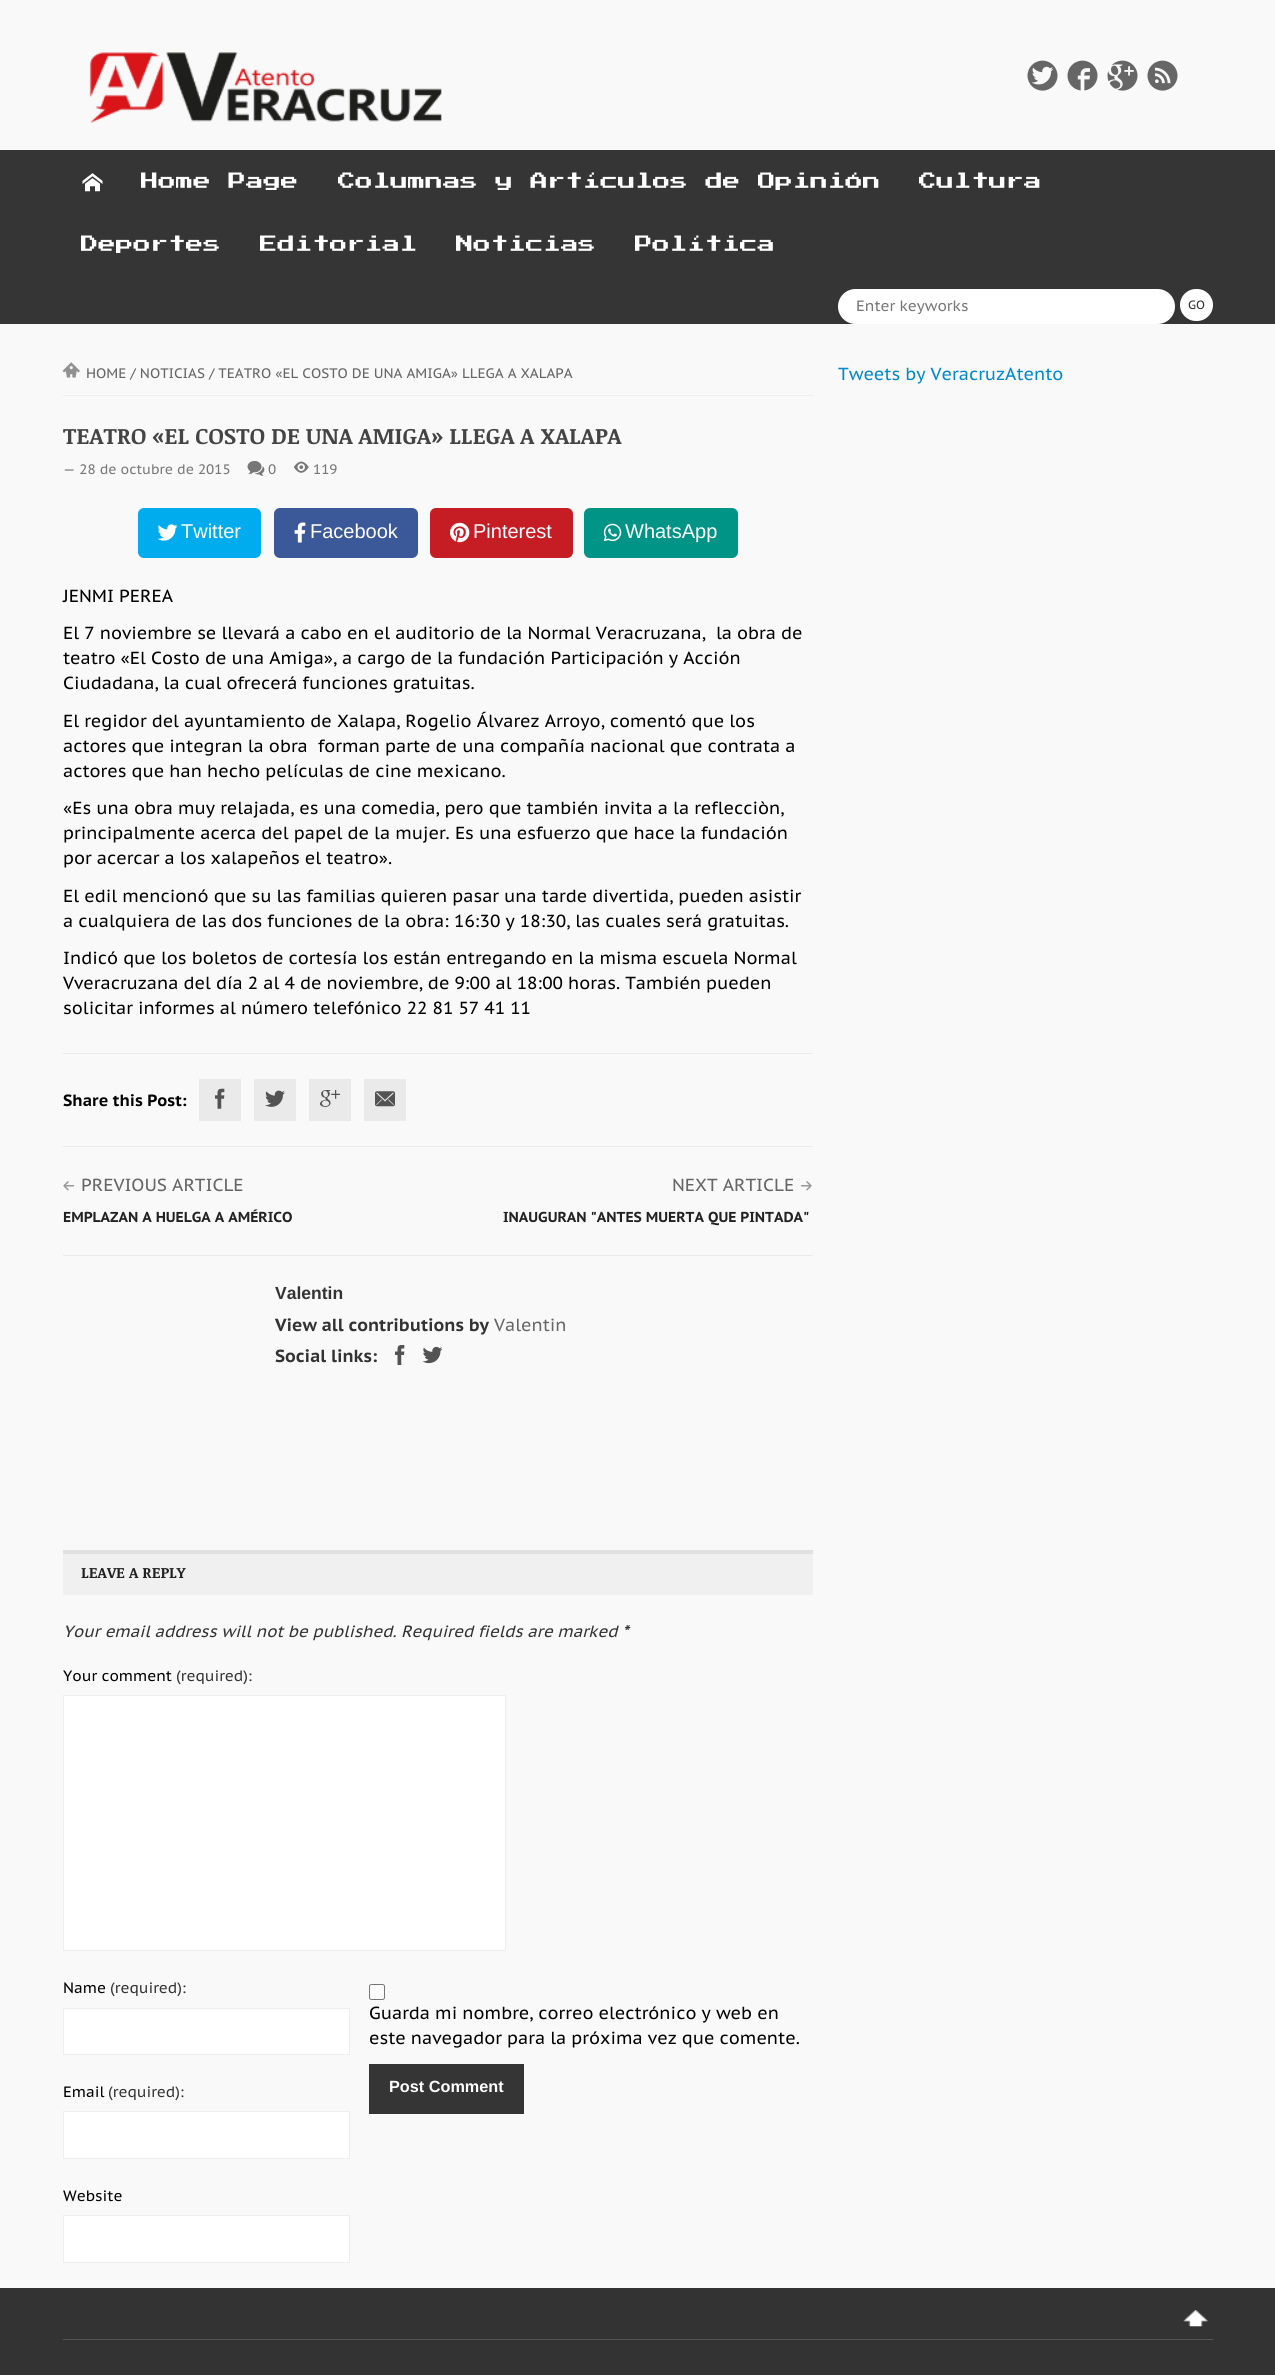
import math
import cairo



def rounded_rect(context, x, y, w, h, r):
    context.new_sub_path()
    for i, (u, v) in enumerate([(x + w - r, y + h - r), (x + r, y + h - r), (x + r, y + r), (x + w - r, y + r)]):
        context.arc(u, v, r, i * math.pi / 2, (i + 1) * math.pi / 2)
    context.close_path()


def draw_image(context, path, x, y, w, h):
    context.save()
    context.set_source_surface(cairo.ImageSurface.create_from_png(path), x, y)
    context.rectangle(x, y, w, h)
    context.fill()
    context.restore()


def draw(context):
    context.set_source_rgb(249 / 255, 249 / 255, 249 / 255)
    context.paint()
    draw_image(context, "images/1.png", 89, 52, 353, 71)
    draw_image(context, "images/2.png", 1027, 60, 31, 31)
    draw_image(context, "images/3.png", 1067, 60, 31, 31)
    draw_image(context, "images/4.png", 1107, 60, 31, 31)
    draw_image(context, "images/5.png", 1147, 60, 31, 31)
    context.set_source_rgb(53 / 255, 53 / 255, 53 / 255)
    context.rectangle(0, 150, 1275, 174)
    context.fill()
    draw_image(context, "images/6.png", 82, 173, 21, 19)
    context.set_source_rgb(1, 1, 1)
    rounded_rect(context, 838, 289, 337, 35, 17.5)
    context.fill()
    rounded_rect(context, 1180, 289, 33, 32, 16)
    context.fill()
    context.set_source_rgb(238 / 255, 238 / 255, 238 / 255)
    context.rectangle(63, 395, 750, 1)
    context.fill()
    draw_image(context, "images/7.png", 62, 362, 18, 16)
    draw_image(context, "images/8.png", 247, 460, 18, 16)
    draw_image(context, "images/9.png", 293, 461, 16, 12)
    context.set_source_rgb(0, 172 / 255, 237 / 255)
    rounded_rect(context, 138, 508, 123, 50, 6)
    context.fill()
    draw_image(context, "images/10.png", 157, 524, 21, 17)
    context.set_source_rgb(59 / 255, 89 / 255, 152 / 255)
    rounded_rect(context, 274, 508, 144, 50, 6)
    context.fill()
    draw_image(context, "images/11.png", 294, 522, 12, 21)
    context.set_source_rgb(198 / 255, 29 / 255, 37 / 255)
    rounded_rect(context, 430, 508, 143, 50, 6)
    context.fill()
    draw_image(context, "images/12.png", 450, 522, 20, 21)
    context.set_source_rgb(0, 148 / 255, 135 / 255)
    rounded_rect(context, 584, 508, 154, 50, 6)
    context.fill()
    draw_image(context, "images/13.png", 603, 523, 19, 19)
    context.set_source_rgb(234 / 255, 234 / 255, 234 / 255)
    context.rectangle(63, 1053, 750, 1)
    context.fill()
    context.rectangle(63, 1146, 750, 1)
    context.fill()
    context.rectangle(199, 1079, 42, 42)
    context.fill()
    draw_image(context, "images/14.png", 215, 1088, 10, 21)
    context.rectangle(254, 1079, 42, 42)
    context.fill()
    draw_image(context, "images/15.png", 265, 1090, 20, 17)
    context.rectangle(309, 1079, 42, 42)
    context.fill()
    draw_image(context, "images/16.png", 320, 1090, 20, 17)
    context.rectangle(364, 1079, 42, 42)
    context.fill()
    draw_image(context, "images/17.png", 375, 1091, 20, 16)
    context.rectangle(63, 1255, 750, 1)
    context.fill()
    draw_image(context, "images/18.png", 63, 1181, 12, 10)
    draw_image(context, "images/19.png", 800, 1181, 12, 10)
    draw_image(context, "images/20.png", 395, 1345, 10, 20)
    draw_image(context, "images/21.png", 422, 1346, 21, 18)
    context.set_source_rgb(240 / 255, 240 / 255, 241 / 255)
    context.rectangle(63, 1554, 750, 41)
    context.fill()
    context.set_source_rgb(226 / 255, 225 / 255, 226 / 255)
    context.rectangle(63, 1550, 750, 4)
    context.fill()
    context.set_source_rgb(1, 1, 1)
    context.rectangle(63.5, 1695.5, 442, 255)
    context.fill_preserve()
    context.set_source_rgb(238 / 255, 238 / 255, 238 / 255)
    context.set_line_width(1)
    context.stroke()
    context.set_source_rgb(1, 1, 1)
    context.rectangle(63.5, 2008.5, 286, 46)
    context.fill_preserve()
    context.set_source_rgb(238 / 255, 238 / 255, 238 / 255)
    context.stroke()
    context.set_source_rgb(1, 1, 1)
    context.rectangle(63.5, 2111.5, 286, 47)
    context.fill_preserve()
    context.set_source_rgb(238 / 255, 238 / 255, 238 / 255)
    context.stroke()
    context.set_source_rgb(1, 1, 1)
    context.rectangle(63.5, 2215.5, 286, 47)
    context.fill_preserve()
    context.set_source_rgb(238 / 255, 238 / 255, 238 / 255)
    context.stroke()
    context.set_source_rgb(1, 1, 1)
    rounded_rect(context, 369.5, 1984.5, 15, 15, 2)
    context.fill_preserve()
    context.set_source_rgb(118 / 255, 118 / 255, 118 / 255)
    context.stroke()
    context.set_source_rgb(53 / 255, 53 / 255, 53 / 255)
    context.rectangle(369, 2064, 155, 50)
    context.fill()
    context.set_source_rgb(51 / 255, 51 / 255, 51 / 255)
    context.rectangle(0, 2288, 1275, 87)
    context.fill()
    context.set_source_rgb(85 / 255, 85 / 255, 85 / 255)
    context.rectangle(63, 2339, 1150, 1)
    context.fill()
    draw_image(context, "images/22.png", 1183, 2310, 25, 17)
    context.select_font_face("Press Start 2P")
    context.set_font_size(17.5)
    context.set_source_rgb(1, 1, 1)
    context.move_to(141, 190)
    context.show_text("Home Page")
    context.move_to(338, 190)
    context.show_text("Columnas y Artículos de Opinión")
    context.move_to(919, 190)
    context.show_text("Cultura")
    context.move_to(81, 253)
    context.show_text("Deportes")
    context.move_to(260, 253)
    context.show_text("Editorial")
    context.move_to(456, 253)
    context.show_text("Noticias")
    context.move_to(635, 253)
    context.show_text("Política")
    context.select_font_face("PT Sans Caption")
    context.set_font_size(15)
    context.set_source_rgb(119 / 255, 119 / 255, 119 / 255)
    context.move_to(856, 311)
    context.show_text("Enter keyworks")
    context.set_font_size(12)
    context.set_source_rgb(51 / 255, 51 / 255, 51 / 255)
    context.move_to(1188, 309)
    context.show_text("GO")
    context.set_font_size(13.75)
    context.set_source_rgb(102 / 255, 102 / 255, 102 / 255)
    context.move_to(86, 378)
    context.show_text("HOME / NOTICIAS / TEATRO «EL COSTO DE UNA AMIGA» LLEGA A XALAPA")
    context.select_font_face("Noticia Text", cairo.FontSlant.NORMAL, cairo.FontWeight.BOLD)
    context.set_font_size(22.5)
    context.set_source_rgb(68 / 255, 68 / 255, 68 / 255)
    context.move_to(63, 444)
    context.show_text("TEATRO «EL COSTO DE UNA AMIGA» LLEGA A XALAPA")
    context.select_font_face("PT Sans Caption")
    context.set_font_size(13.75)
    context.set_source_rgb(119 / 255, 119 / 255, 119 / 255)
    context.move_to(63, 474)
    context.show_text("— 28 de octubre de 2015")
    context.move_to(268, 474)
    context.show_text("0")
    context.move_to(313, 474)
    context.show_text("119")
    context.select_font_face("Liberation Sans")
    context.set_font_size(20)
    context.set_source_rgb(1, 1, 1)
    context.move_to(181, 538)
    context.show_text("Twitter")
    context.move_to(310, 538)
    context.show_text("Facebook")
    context.move_to(473, 538)
    context.show_text("Pinterest")
    context.move_to(625, 538)
    context.show_text("WhatsApp")
    context.select_font_face("PT Sans Caption")
    context.set_font_size(17.5)
    context.set_source_rgb(0, 0, 0)
    context.move_to(63, 602)
    context.show_text("JENMI PEREA")
    context.move_to(63, 639)
    context.show_text("El 7 noviembre se llevará a cabo en el auditorio de la Normal Veracruzana,  la obra de")
    context.move_to(63, 664)
    context.show_text("teatro «El Costo de una Amiga», a cargo de la fundación Participación y Acción")
    context.move_to(63, 689)
    context.show_text("Ciudadana, la cual ofrecerá funciones gratuitas.")
    context.move_to(63, 727)
    context.show_text("El regidor del ayuntamiento de Xalapa, Rogelio Álvarez Arroyo, comentó que los")
    context.move_to(63, 752)
    context.show_text("actores que integran la obra  forman parte de una compañía nacional que contrata a")
    context.move_to(63, 777)
    context.show_text("actores que han hecho películas de cine mexicano.")
    context.move_to(63, 814)
    context.show_text("«Es una obra muy relajada, es una comedia, pero que también invita a la reflecciòn,")
    context.move_to(63, 839)
    context.show_text("principalmente acerca del papel de la mujer. Es una esfuerzo que hace la fundación")
    context.move_to(63, 864)
    context.show_text("por acercar a los xalapeños el teatro».")
    context.move_to(63, 902)
    context.show_text("El edil mencionó que su las familias quieren pasar una tarde divertida, pueden asistir")
    context.move_to(63, 927)
    context.show_text("a cualquiera de las dos funciones de la obra: 16:30 y 18:30, las cuales será gratuitas.")
    context.move_to(63, 964)
    context.show_text("Indicó que los boletos de cortesía los están entregando en la misma escuela Normal")
    context.move_to(63, 989)
    context.show_text("Vveracruzana del día 2 al 4 de noviembre, de 9:00 al 18:00 horas. También pueden")
    context.move_to(63, 1014)
    context.show_text("solicitar informes al número telefónico 22 81 57 41 11")
    context.select_font_face("PT Sans Caption", cairo.FontSlant.NORMAL, cairo.FontWeight.BOLD)
    context.set_font_size(16.25)
    context.move_to(63, 1106)
    context.show_text("Share this Post:")
    context.select_font_face("PT Sans Caption")
    context.set_font_size(17.5)
    context.set_source_rgb(102 / 255, 102 / 255, 102 / 255)
    context.move_to(81, 1191)
    context.show_text("PREVIOUS ARTICLE")
    context.select_font_face("PT Sans Caption", cairo.FontSlant.NORMAL, cairo.FontWeight.BOLD)
    context.set_font_size(14.4)
    context.set_source_rgb(34 / 255, 34 / 255, 34 / 255)
    context.move_to(63, 1222)
    context.show_text("EMPLAZAN A HUELGA A AMÉRICO")
    context.select_font_face("PT Sans Caption")
    context.set_font_size(17.5)
    context.set_source_rgb(102 / 255, 102 / 255, 102 / 255)
    context.move_to(672, 1191)
    context.show_text("NEXT ARTICLE")
    context.select_font_face("PT Sans Caption", cairo.FontSlant.NORMAL, cairo.FontWeight.BOLD)
    context.set_font_size(14.4)
    context.set_source_rgb(34 / 255, 34 / 255, 34 / 255)
    context.move_to(503, 1222)
    context.show_text("INAUGURAN \"ANTES MUERTA QUE PINTADA\"")
    context.select_font_face("Liberation Sans", cairo.FontSlant.NORMAL, cairo.FontWeight.BOLD)
    context.set_font_size(17.5)
    context.set_source_rgb(51 / 255, 51 / 255, 51 / 255)
    context.move_to(275, 1299)
    context.show_text("Valentin")
    context.select_font_face("PT Sans Caption", cairo.FontSlant.NORMAL, cairo.FontWeight.BOLD)
    context.move_to(275, 1331)
    context.show_text("View all contributions by")
    context.select_font_face("PT Sans Caption")
    context.set_source_rgb(102 / 255, 102 / 255, 102 / 255)
    context.move_to(494, 1331)
    context.show_text("Valentin")
    context.select_font_face("PT Sans Caption", cairo.FontSlant.NORMAL, cairo.FontWeight.BOLD)
    context.set_source_rgb(51 / 255, 51 / 255, 51 / 255)
    context.move_to(275, 1362)
    context.show_text("Social links:")
    context.select_font_face("Noticia Text", cairo.FontSlant.NORMAL, cairo.FontWeight.BOLD)
    context.set_font_size(15)
    context.set_source_rgb(34 / 255, 34 / 255, 34 / 255)
    context.move_to(81, 1578)
    context.show_text("LEAVE A REPLY")
    context.select_font_face("PT Sans Caption", cairo.FontSlant.ITALIC)
    context.set_font_size(16.25)
    context.set_source_rgb(51 / 255, 51 / 255, 51 / 255)
    context.move_to(63, 1637)
    context.show_text("Your email address will not be published. Required fields are marked")
    context.select_font_face("PT Sans Caption", cairo.FontSlant.ITALIC, cairo.FontWeight.BOLD)
    context.move_to(622, 1637)
    context.show_text("*")
    context.select_font_face("PT Sans Caption")
    context.set_font_size(15)
    context.set_source_rgb(0, 0, 0)
    context.move_to(63, 1681)
    context.show_text("Your comment")
    context.set_source_rgb(51 / 255, 51 / 255, 51 / 255)
    context.move_to(176, 1681)
    context.show_text("(required):")
    context.set_source_rgb(0, 0, 0)
    context.move_to(63, 1993)
    context.show_text("Name")
    context.set_source_rgb(51 / 255, 51 / 255, 51 / 255)
    context.move_to(110, 1993)
    context.show_text("(required):")
    context.set_source_rgb(0, 0, 0)
    context.move_to(63, 2097)
    context.show_text("Email")
    context.set_source_rgb(51 / 255, 51 / 255, 51 / 255)
    context.move_to(108, 2097)
    context.show_text("(required):")
    context.set_source_rgb(0, 0, 0)
    context.move_to(63, 2201)
    context.show_text("Website")
    context.set_font_size(17.5)
    context.move_to(369, 2019)
    context.show_text("Guarda mi nombre, correo electrónico y web en")
    context.move_to(369, 2044)
    context.show_text("este navegador para la próxima vez que comente.")
    context.select_font_face("Liberation Sans", cairo.FontSlant.NORMAL, cairo.FontWeight.BOLD)
    context.set_font_size(16.25)
    context.set_source_rgb(1, 1, 1)
    context.move_to(389, 2092)
    context.show_text("Post Comment")
    context.select_font_face("PT Sans Caption")
    context.set_font_size(17.5)
    context.set_source_rgb(0, 136 / 255, 204 / 255)
    context.move_to(838, 380)
    context.show_text("Tweets by VeracruzAtento")


surface = cairo.ImageSurface(cairo.Format.RGB24, 1275, 2375)
context = cairo.Context(surface)
options = cairo.FontOptions()
options.set_hint_metrics(cairo.HintMetrics.OFF)
options.set_hint_style(cairo.HintStyle.NONE)
context.set_font_options(options)
context.set_miter_limit(4)
draw(context)
surface.write_to_png("out.png")
